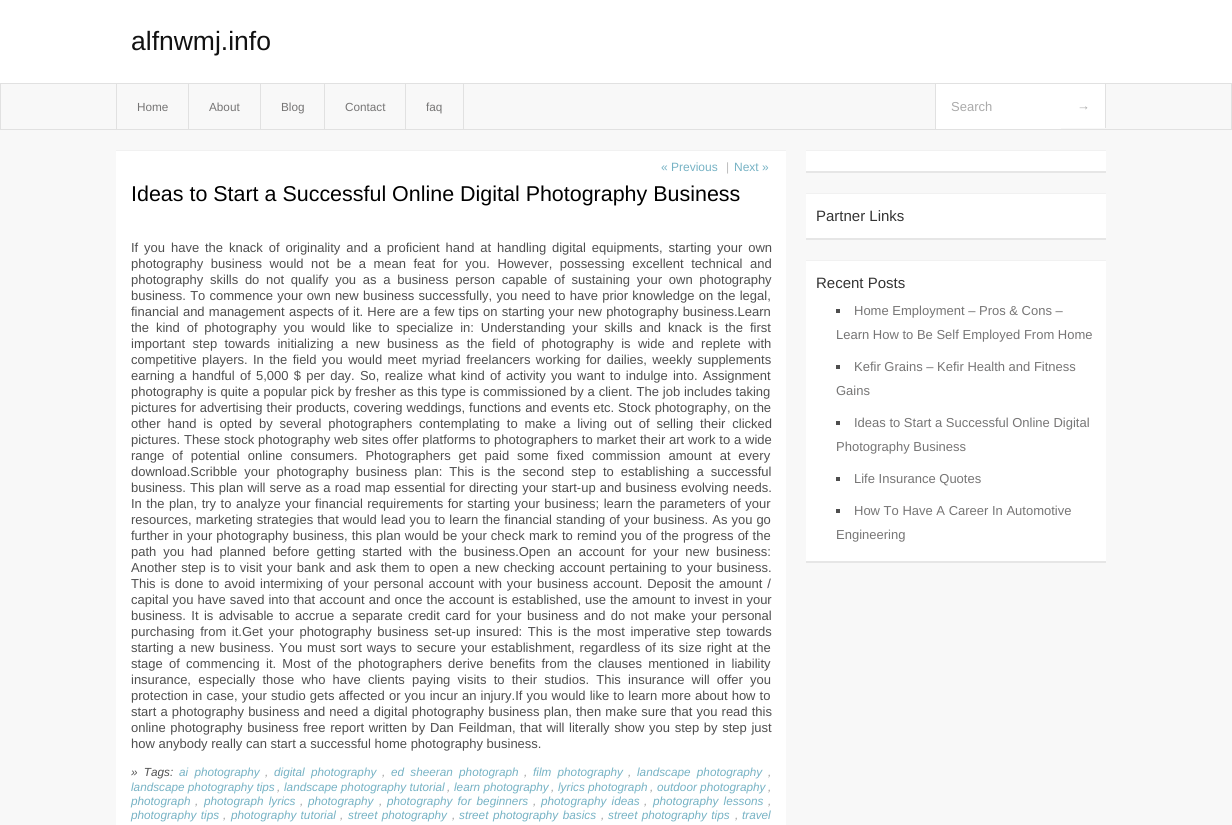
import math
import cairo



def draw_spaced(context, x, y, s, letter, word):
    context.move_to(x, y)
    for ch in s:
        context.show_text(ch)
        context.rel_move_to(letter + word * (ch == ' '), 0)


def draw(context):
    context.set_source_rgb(248 / 255, 248 / 255, 248 / 255)
    context.paint()
    context.set_source_rgb(1, 1, 1)
    context.rectangle(0, 0, 1232, 83)
    context.fill()
    context.rectangle(0.5, 83.5, 1231, 46)
    context.set_source_rgb(225 / 255, 225 / 255, 225 / 255)
    context.set_line_width(1)
    context.stroke()
    context.rectangle(116, 84, 1, 46)
    context.fill()
    context.rectangle(188, 84, 1, 46)
    context.fill()
    context.rectangle(260, 84, 1, 46)
    context.fill()
    context.rectangle(324, 84, 1, 46)
    context.fill()
    context.rectangle(405, 84, 1, 46)
    context.fill()
    context.rectangle(463, 84, 1, 46)
    context.fill()
    context.set_source_rgb(1, 1, 1)
    context.rectangle(936, 84, 125, 45)
    context.fill()
    context.set_source_rgb(225 / 255, 225 / 255, 225 / 255)
    context.rectangle(935, 84, 1, 45)
    context.fill()
    context.set_source_rgb(1, 1, 1)
    context.rectangle(1061, 84, 44, 44)
    context.fill()
    context.set_source_rgb(225 / 255, 225 / 255, 225 / 255)
    context.rectangle(1105, 84, 1, 44)
    context.fill()
    context.set_source_rgb(1, 1, 1)
    context.rectangle(116, 151, 670, 674)
    context.fill()
    context.set_source_rgb(241 / 255, 241 / 255, 241 / 255)
    context.rectangle(116, 150, 670, 1)
    context.fill()
    context.set_source_rgb(1, 1, 1)
    context.rectangle(806, 151, 300, 20)
    context.fill()
    context.set_source_rgb(241 / 255, 241 / 255, 241 / 255)
    context.rectangle(806, 150, 300, 1)
    context.fill()
    context.set_source_rgb(230 / 255, 230 / 255, 230 / 255)
    context.rectangle(806, 171, 300, 2)
    context.fill()
    context.set_source_rgb(1, 1, 1)
    context.rectangle(806, 194, 300, 44)
    context.fill()
    context.set_source_rgb(241 / 255, 241 / 255, 241 / 255)
    context.rectangle(806, 193, 300, 1)
    context.fill()
    context.set_source_rgb(230 / 255, 230 / 255, 230 / 255)
    context.rectangle(806, 238, 300, 2)
    context.fill()
    context.set_source_rgb(1, 1, 1)
    context.rectangle(806, 261, 300, 300)
    context.fill()
    context.set_source_rgb(241 / 255, 241 / 255, 241 / 255)
    context.rectangle(806, 260, 300, 1)
    context.fill()
    context.set_source_rgb(230 / 255, 230 / 255, 230 / 255)
    context.rectangle(806, 561, 300, 2)
    context.fill()
    context.set_source_rgb(78 / 255, 78 / 255, 78 / 255)
    context.rectangle(836, 309, 4, 4)
    context.fill()
    context.rectangle(836, 365, 4, 4)
    context.fill()
    context.rectangle(836, 421, 4, 4)
    context.fill()
    context.rectangle(836, 477, 4, 4)
    context.fill()
    context.rectangle(836, 509, 4, 4)
    context.fill()
    context.select_font_face("Liberation Sans")
    context.set_font_size(26.5)
    context.set_source_rgb(17 / 255, 17 / 255, 17 / 255)
    context.move_to(131, 50)
    context.show_text("alfnwmj.info")
    context.set_font_size(11.75)
    context.set_source_rgb(118 / 255, 117 / 255, 117 / 255)
    context.move_to(137, 111)
    context.show_text("Home")
    context.move_to(209, 111)
    context.show_text("About")
    context.move_to(281, 111)
    context.show_text("Blog")
    context.move_to(345, 111)
    context.show_text("Contact")
    context.move_to(426, 111)
    context.show_text("faq")
    context.set_font_size(13)
    context.set_source_rgb(170 / 255, 170 / 255, 170 / 255)
    context.move_to(951, 111)
    context.show_text("Search")
    context.move_to(1077, 110)
    context.show_text("→")
    context.set_font_size(12)
    context.set_source_rgb(118 / 255, 178 / 255, 196 / 255)
    context.move_to(661, 171)
    context.show_text("« Previous")
    context.set_source_rgb(187 / 255, 187 / 255, 187 / 255)
    context.move_to(726, 171)
    context.show_text("|")
    context.set_source_rgb(118 / 255, 178 / 255, 196 / 255)
    context.move_to(734, 171)
    context.show_text("Next »")
    context.set_font_size(21.45)
    context.set_source_rgb(0, 0, 0)
    context.move_to(131, 201)
    context.show_text("Ideas to Start a Successful Online Digital Photography Business")
    context.set_font_size(13)
    context.set_source_rgb(79 / 255, 79 / 255, 79 / 255)
    draw_spaced(context, 131, 252, "If you have the knack of originality and a proficient hand at handling digital equipments, starting your own", 0, 2.25)
    draw_spaced(context, 131, 268, "photography business would not be a mean feat for you. However, possessing excellent technical and", 0, 3.9)
    draw_spaced(context, 131, 284, "photography skills do not qualify you as a business person capable of sustaining your own photography", 0, 3.1)
    draw_spaced(context, 131, 300, "business. To commence your own new business successfully, you need to have prior knowledge on the legal,", 0, 0.6)
    draw_spaced(context, 131, 316, "financial and management aspects of it. Here are a few tips on starting your new photography business.Learn", 0, 0.6)
    draw_spaced(context, 131, 332, "the kind of photography you would like to specialize in: Understanding your skills and knack is the first", 0, 3.25)
    draw_spaced(context, 131, 348, "important step towards initializing a new business as the field of photography is wide and replete with", 0, 3.75)
    draw_spaced(context, 131, 364, "competitive players. In the field you would meet myriad freelancers working for dailies, weekly supplements", 0, 1.75)
    draw_spaced(context, 131, 380, "earning a handful of 5,000 $ per day. So, realize what kind of activity you want to indulge into. Assignment", 0, 1.6)
    draw_spaced(context, 131, 396, "photography is quite a popular pick by fresher as this type is commissioned by a client. The job includes taking", 0, 0.25)
    draw_spaced(context, 131, 412, "pictures for advertising their products, covering weddings, functions and events etc. Stock photography, on the", 0, 0.4)
    draw_spaced(context, 131, 428, "other hand is opted by several photographers contemplating to make a living out of selling their clicked", 0, 3.25)
    draw_spaced(context, 131, 444, "pictures. These stock photography web sites offer platforms to photographers to market their art work to a wide", 0, 0.2)
    draw_spaced(context, 131, 460, "range of potential online consumers. Photographers get paid some fixed commission amount at every", 0, 4.25)
    draw_spaced(context, 131, 476, "download.Scribble your photography business plan: This is the second step to establishing a successful", 0, 3.4)
    draw_spaced(context, 131, 492, "business. This plan will serve as a road map essential for directing your start-up and business evolving needs.", 0, 0.5)
    draw_spaced(context, 131, 508, "In the plan, try to analyze your financial requirements for starting your business; learn the parameters of your", 0, 0.9)
    draw_spaced(context, 131, 524, "resources, marketing strategies that would lead you to learn the financial standing of your business. As you go", 0, 0.4)
    draw_spaced(context, 131, 540, "further in your photography business, this plan would be your check mark to remind you of the progress of the", 0, 0.5)
    draw_spaced(context, 131, 556, "path you had planned before getting started with the business.Open an account for your new business:", 0, 3.25)
    draw_spaced(context, 131, 572, "Another step is to visit your bank and ask them to open a new checking account pertaining to your business.", 0, 1)
    draw_spaced(context, 131, 588, "This is done to avoid intermixing of your personal account with your business account. Deposit the amount /", 0, 1.25)
    draw_spaced(context, 131, 604, "capital you have saved into that account and once the account is established, use the amount to invest in your", 0, 0.4)
    draw_spaced(context, 131, 620, "business. It is advisable to accrue a separate credit card for your business and do not make your personal", 0, 1.75)
    draw_spaced(context, 131, 636, "purchasing from it.Get your photography business set-up insured: This is the most imperative step towards", 0, 2)
    draw_spaced(context, 131, 652, "starting a new business. You must sort ways to secure your establishment, regardless of its size right at the", 0, 1.25)
    draw_spaced(context, 131, 668, "stage of commencing it. Most of the photographers derive benefits from the clauses mentioned in liability", 0, 2.6)
    draw_spaced(context, 131, 684, "insurance, especially those who have clients paying visits to their studios. This insurance will offer you", 0, 3.6)
    draw_spaced(context, 131, 700, "protection in case, your studio gets affected or you incur an injury.If you would like to learn more about how to", 0, 0.5)
    draw_spaced(context, 131, 716, "start a photography business and need a digital photography business plan, then make sure that you read this", 0, 0.5)
    draw_spaced(context, 131, 732, "online photography business free report written by Dan Feildman, that will literally show you step by step just", 0, 1)
    context.move_to(131, 748)
    context.show_text("how anybody really can start a successful home photography business.")
    context.select_font_face("Liberation Sans", cairo.FontSlant.ITALIC)
    context.set_font_size(11.75)
    draw_spaced(context, 131, 776, "» Tags:", 0, 3)
    context.set_source_rgb(118 / 255, 178 / 255, 196 / 255)
    draw_spaced(context, 179, 776, "ai photography", 0, 3)
    context.set_source_rgb(153 / 255, 153 / 255, 153 / 255)
    context.move_to(265, 776)
    context.show_text(",")
    context.set_source_rgb(118 / 255, 178 / 255, 196 / 255)
    draw_spaced(context, 274, 776, "digital photography", 0, 3)
    context.set_source_rgb(153 / 255, 153 / 255, 153 / 255)
    context.move_to(382, 776)
    context.show_text(",")
    context.set_source_rgb(118 / 255, 178 / 255, 196 / 255)
    draw_spaced(context, 391, 776, "ed sheeran photograph", 0, 3)
    context.set_source_rgb(153 / 255, 153 / 255, 153 / 255)
    context.move_to(524, 776)
    context.show_text(",")
    context.set_source_rgb(118 / 255, 178 / 255, 196 / 255)
    draw_spaced(context, 533, 776, "film photography", 0, 3)
    context.set_source_rgb(153 / 255, 153 / 255, 153 / 255)
    context.move_to(628, 776)
    context.show_text(",")
    context.set_source_rgb(118 / 255, 178 / 255, 196 / 255)
    draw_spaced(context, 637, 776, "landscape photography", 0, 3)
    context.set_source_rgb(153 / 255, 153 / 255, 153 / 255)
    context.move_to(768, 776)
    context.show_text(",")
    context.set_source_rgb(118 / 255, 178 / 255, 196 / 255)
    context.move_to(131, 791)
    context.show_text("landscape photography tips")
    context.set_source_rgb(153 / 255, 153 / 255, 153 / 255)
    context.move_to(277, 791)
    context.show_text(",")
    context.set_source_rgb(118 / 255, 178 / 255, 196 / 255)
    context.move_to(284, 791)
    context.show_text("landscape photography tutorial")
    context.set_source_rgb(153 / 255, 153 / 255, 153 / 255)
    context.move_to(447, 791)
    context.show_text(",")
    context.set_source_rgb(118 / 255, 178 / 255, 196 / 255)
    context.move_to(454, 791)
    context.show_text("learn photography")
    context.set_source_rgb(153 / 255, 153 / 255, 153 / 255)
    context.move_to(551, 791)
    context.show_text(",")
    context.set_source_rgb(118 / 255, 178 / 255, 196 / 255)
    context.move_to(558, 791)
    context.show_text("lyrics photograph")
    context.set_source_rgb(153 / 255, 153 / 255, 153 / 255)
    context.move_to(650, 791)
    context.show_text(",")
    context.set_source_rgb(118 / 255, 178 / 255, 196 / 255)
    context.move_to(657, 791)
    context.show_text("outdoor photography")
    context.set_source_rgb(153 / 255, 153 / 255, 153 / 255)
    context.move_to(768, 791)
    context.show_text(",")
    context.set_source_rgb(118 / 255, 178 / 255, 196 / 255)
    context.move_to(131, 805)
    context.show_text("photograph")
    context.set_source_rgb(153 / 255, 153 / 255, 153 / 255)
    context.move_to(195, 805)
    context.show_text(",")
    context.set_source_rgb(118 / 255, 178 / 255, 196 / 255)
    draw_spaced(context, 204, 805, "photograph lyrics", 0, 2)
    context.set_source_rgb(153 / 255, 153 / 255, 153 / 255)
    context.move_to(300, 805)
    context.show_text(",")
    context.set_source_rgb(118 / 255, 178 / 255, 196 / 255)
    context.move_to(308, 805)
    context.show_text("photography")
    context.set_source_rgb(153 / 255, 153 / 255, 153 / 255)
    context.move_to(379, 805)
    context.show_text(",")
    context.set_source_rgb(118 / 255, 178 / 255, 196 / 255)
    draw_spaced(context, 387, 805, "photography for beginners", 0, 2)
    context.set_source_rgb(153 / 255, 153 / 255, 153 / 255)
    context.move_to(533, 805)
    context.show_text(",")
    context.set_source_rgb(118 / 255, 178 / 255, 196 / 255)
    draw_spaced(context, 541, 805, "photography ideas", 0, 2)
    context.set_source_rgb(153 / 255, 153 / 255, 153 / 255)
    context.move_to(644, 805)
    context.show_text(",")
    context.set_source_rgb(118 / 255, 178 / 255, 196 / 255)
    draw_spaced(context, 653, 805, "photography lessons", 0, 2)
    context.set_source_rgb(153 / 255, 153 / 255, 153 / 255)
    context.move_to(768, 805)
    context.show_text(",")
    context.set_source_rgb(118 / 255, 178 / 255, 196 / 255)
    draw_spaced(context, 131, 819, "photography tips", 0, 1.25)
    context.set_source_rgb(153 / 255, 153 / 255, 153 / 255)
    context.move_to(223, 819)
    context.show_text(",")
    context.set_source_rgb(118 / 255, 178 / 255, 196 / 255)
    draw_spaced(context, 231, 819, "photography tutorial", 0, 1)
    context.set_source_rgb(153 / 255, 153 / 255, 153 / 255)
    context.move_to(340, 819)
    context.show_text(",")
    context.set_source_rgb(118 / 255, 178 / 255, 196 / 255)
    draw_spaced(context, 348, 819, "street photography", 0, 1)
    context.set_source_rgb(153 / 255, 153 / 255, 153 / 255)
    context.move_to(452, 819)
    context.show_text(",")
    context.set_source_rgb(118 / 255, 178 / 255, 196 / 255)
    draw_spaced(context, 459, 819, "street photography basics", 0, 1.25)
    context.set_source_rgb(153 / 255, 153 / 255, 153 / 255)
    context.move_to(601, 819)
    context.show_text(",")
    context.set_source_rgb(118 / 255, 178 / 255, 196 / 255)
    draw_spaced(context, 608, 819, "street photography tips", 0, 1)
    context.set_source_rgb(153 / 255, 153 / 255, 153 / 255)
    context.move_to(735, 819)
    context.show_text(",")
    context.set_source_rgb(118 / 255, 178 / 255, 196 / 255)
    context.move_to(742, 819)
    context.show_text("travel")
    context.select_font_face("Liberation Sans")
    context.set_font_size(15)
    context.set_source_rgb(51 / 255, 51 / 255, 51 / 255)
    context.move_to(816, 221)
    context.show_text("Partner Links")
    context.move_to(816, 288)
    context.show_text("Recent Posts")
    context.set_font_size(13)
    context.set_source_rgb(118 / 255, 117 / 255, 117 / 255)
    context.move_to(854, 315)
    context.show_text("Home Employment – Pros & Cons –")
    context.move_to(836, 339)
    context.show_text("Learn How to Be Self Employed From Home")
    context.move_to(854, 371)
    context.show_text("Kefir Grains – Kefir Health and Fitness")
    context.move_to(836, 395)
    context.show_text("Gains")
    context.move_to(854, 427)
    context.show_text("Ideas to Start a Successful Online Digital")
    context.move_to(836, 451)
    context.show_text("Photography Business")
    context.move_to(854, 483)
    context.show_text("Life Insurance Quotes")
    context.move_to(854, 515)
    context.show_text("How To Have A Career In Automotive")
    context.move_to(836, 539)
    context.show_text("Engineering")


surface = cairo.ImageSurface(cairo.Format.RGB24, 1232, 825)
context = cairo.Context(surface)
options = cairo.FontOptions()
options.set_hint_metrics(cairo.HintMetrics.OFF)
options.set_hint_style(cairo.HintStyle.NONE)
context.set_font_options(options)
context.set_miter_limit(4)
draw(context)
surface.write_to_png("out.png")
